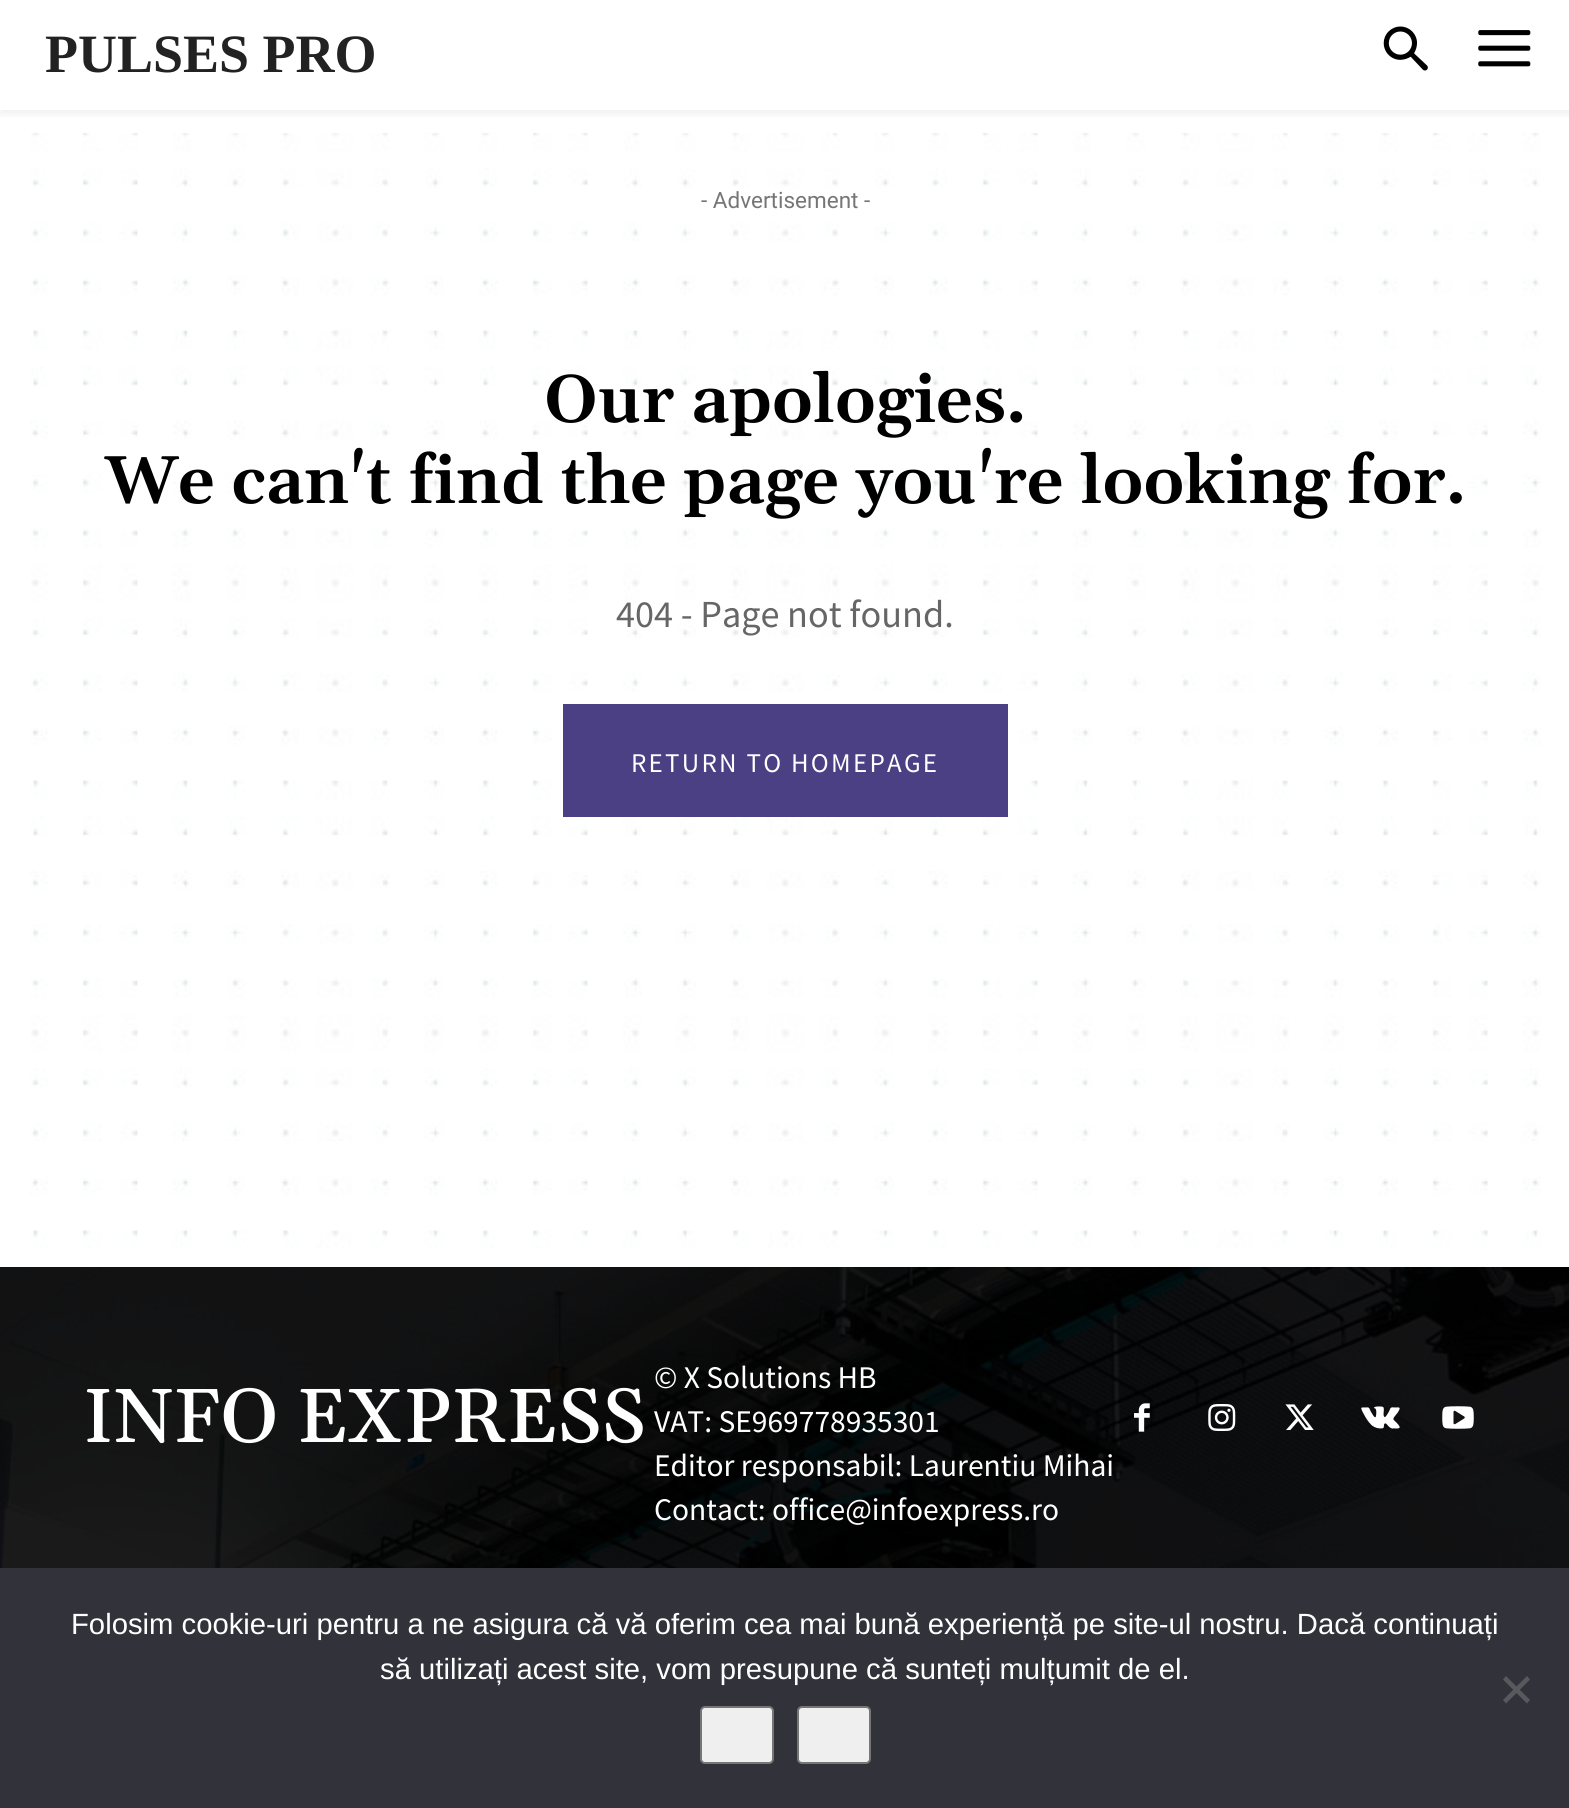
import math
import cairo



def draw_spaced(context, x, y, s, letter, word):
    context.move_to(x, y)
    for ch in s:
        context.show_text(ch)
        context.rel_move_to(letter + word * (ch == ' '), 0)


def rounded_rect(context, x, y, w, h, r):
    context.new_sub_path()
    for i, (u, v) in enumerate([(x + w - r, y + h - r), (x + r, y + h - r), (x + r, y + r), (x + w - r, y + r)]):
        context.arc(u, v, r, i * math.pi / 2, (i + 1) * math.pi / 2)
    context.close_path()


def draw_shadow(context, x, y, w, h, r, blur, alpha):
    context.push_group_with_content(cairo.Content.ALPHA)
    context.set_operator(cairo.Operator.SOURCE)
    for i in range(15, -16, -2):
        e = blur * i / 6
        if min(w, h) + 2 * e > 0:
            context.set_source_rgba(0, 0, 0, alpha * math.erfc((i - 1) / 8.5) / 2)
            rounded_rect(context, x - e, y - e, w + 2 * e, h + 2 * e, max(0, min(r + e + blur * .6, min(w, h) / 2 + e)))
            context.fill()
    context.mask(context.pop_group())


def draw_image(context, path, x, y, w, h):
    context.save()
    context.set_source_surface(cairo.ImageSurface.create_from_png(path), x, y)
    context.rectangle(x, y, w, h)
    context.fill()
    context.restore()


def draw(context):
    context.set_source_rgb(1, 1, 1)
    context.paint()
    draw_image(context, "images/1.png", 1383, 26, 45, 45)
    draw_image(context, "images/2.png", 1478, 30, 53, 37)
    context.save()
    context.rectangle(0, 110, 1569, 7)
    context.clip()
    context.set_source_rgb(0, 0, 0)
    draw_shadow(context, 0, 5, 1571, 110, 0, 4.5, 0.06)
    context.restore()
    draw_image(context, "images/3.png", 30, 133, 1511, 1115)
    context.set_source_rgb(76 / 255, 64 / 255, 132 / 255)
    context.rectangle(563, 704, 445, 113)
    context.fill()
    context.set_source_rgb(0, 0, 0)
    context.rectangle(0, 1267, 1569, 301)
    context.fill()
    draw_image(context, "images/4.png", 0, 1267, 1569, 301)
    draw_image(context, "images/5.png", 1134, 1403, 16, 29)
    draw_image(context, "images/6.png", 1208, 1404, 28, 27)
    draw_image(context, "images/7.png", 1285, 1404, 29, 26)
    draw_image(context, "images/8.png", 1361, 1406, 39, 23)
    draw_image(context, "images/9.png", 1442, 1406, 32, 23)
    context.set_source_rgb(50 / 255, 50 / 255, 58 / 255)
    context.rectangle(0, 1568, 1569, 240)
    context.fill()
    context.set_source_rgb(89 / 255, 89 / 255, 93 / 255)
    context.new_path()
    context.move_to(1527, 1676)
    context.line_to(1530, 1679.5)
    context.line_to(1506, 1703.5)
    context.line_to(1503, 1700)
    context.close_path()
    context.fill()
    context.new_path()
    context.move_to(1503, 1679.5)
    context.line_to(1506, 1676)
    context.line_to(1530, 1700)
    context.line_to(1527, 1703.5)
    context.close_path()
    context.fill()
    context.set_source_rgb(239 / 255, 239 / 255, 239 / 255)
    rounded_rect(context, 701, 1707, 72, 56, 4)
    context.fill_preserve()
    context.set_source_rgb(118 / 255, 118 / 255, 118 / 255)
    context.stroke()
    context.set_source_rgb(239 / 255, 239 / 255, 239 / 255)
    rounded_rect(context, 798, 1707, 72, 56, 4)
    context.fill_preserve()
    context.set_source_rgb(118 / 255, 118 / 255, 118 / 255)
    context.stroke()
    context.select_font_face("Liberation Serif", cairo.FontSlant.NORMAL, cairo.FontWeight.BOLD)
    context.set_font_size(54)
    context.set_source_rgb(34 / 255, 34 / 255, 34 / 255)
    context.move_to(45, 72)
    context.show_text("PULSES PRO")
    context.select_font_face("Roboto")
    context.set_font_size(22.5)
    context.set_source_rgb(118 / 255, 118 / 255, 118 / 255)
    context.move_to(701, 208)
    context.show_text("- Advertisement -")
    context.select_font_face("Gelasio SemiBold")
    context.set_font_size(67.5)
    context.set_source_rgb(0, 0, 0)
    context.move_to(544, 422)
    context.show_text("Our apologies.")
    context.move_to(105, 503)
    context.show_text("We can't find the page you're looking for.")
    context.select_font_face("Source Sans Pro")
    context.set_font_size(38.25)
    context.set_source_rgb(102 / 255, 102 / 255, 102 / 255)
    context.move_to(616, 627)
    context.show_text("404 - Page not found.")
    context.set_font_size(27)
    context.set_source_rgb(1, 1, 1)
    draw_spaced(context, 631, 772, "RETURN TO HOMEPAGE", 2.25, 0)
    context.select_font_face("Gelasio Medium")
    context.set_font_size(76.5)
    context.move_to(83, 1442)
    context.show_text("INFO EXPRESS")
    context.select_font_face("Source Sans Pro")
    context.set_font_size(31.5)
    context.move_to(654, 1388)
    context.show_text("© X Solutions HB")
    context.move_to(654, 1432)
    context.show_text("VAT: SE969778935301")
    context.move_to(654, 1476)
    context.show_text("Editor responsabil: Laurentiu Mihai")
    context.move_to(654, 1520)
    context.show_text("Contact: office@infoexpress.ro")
    context.select_font_face("Liberation Sans")
    context.set_font_size(29.25)
    context.move_to(71, 1634)
    context.show_text("Folosim cookie-uri pentru a ne asigura că vă oferim cea mai bună experiență pe site-ul nostru. Dacă continuați")
    context.move_to(380, 1679)
    context.show_text("să utilizați acest site, vom presupune că sunteți mulțumit de el.")


surface = cairo.ImageSurface(cairo.Format.RGB24, 1569, 1808)
context = cairo.Context(surface)
options = cairo.FontOptions()
options.set_hint_metrics(cairo.HintMetrics.OFF)
options.set_hint_style(cairo.HintStyle.NONE)
context.set_font_options(options)
context.set_miter_limit(4)
draw(context)
surface.write_to_png("out.png")
